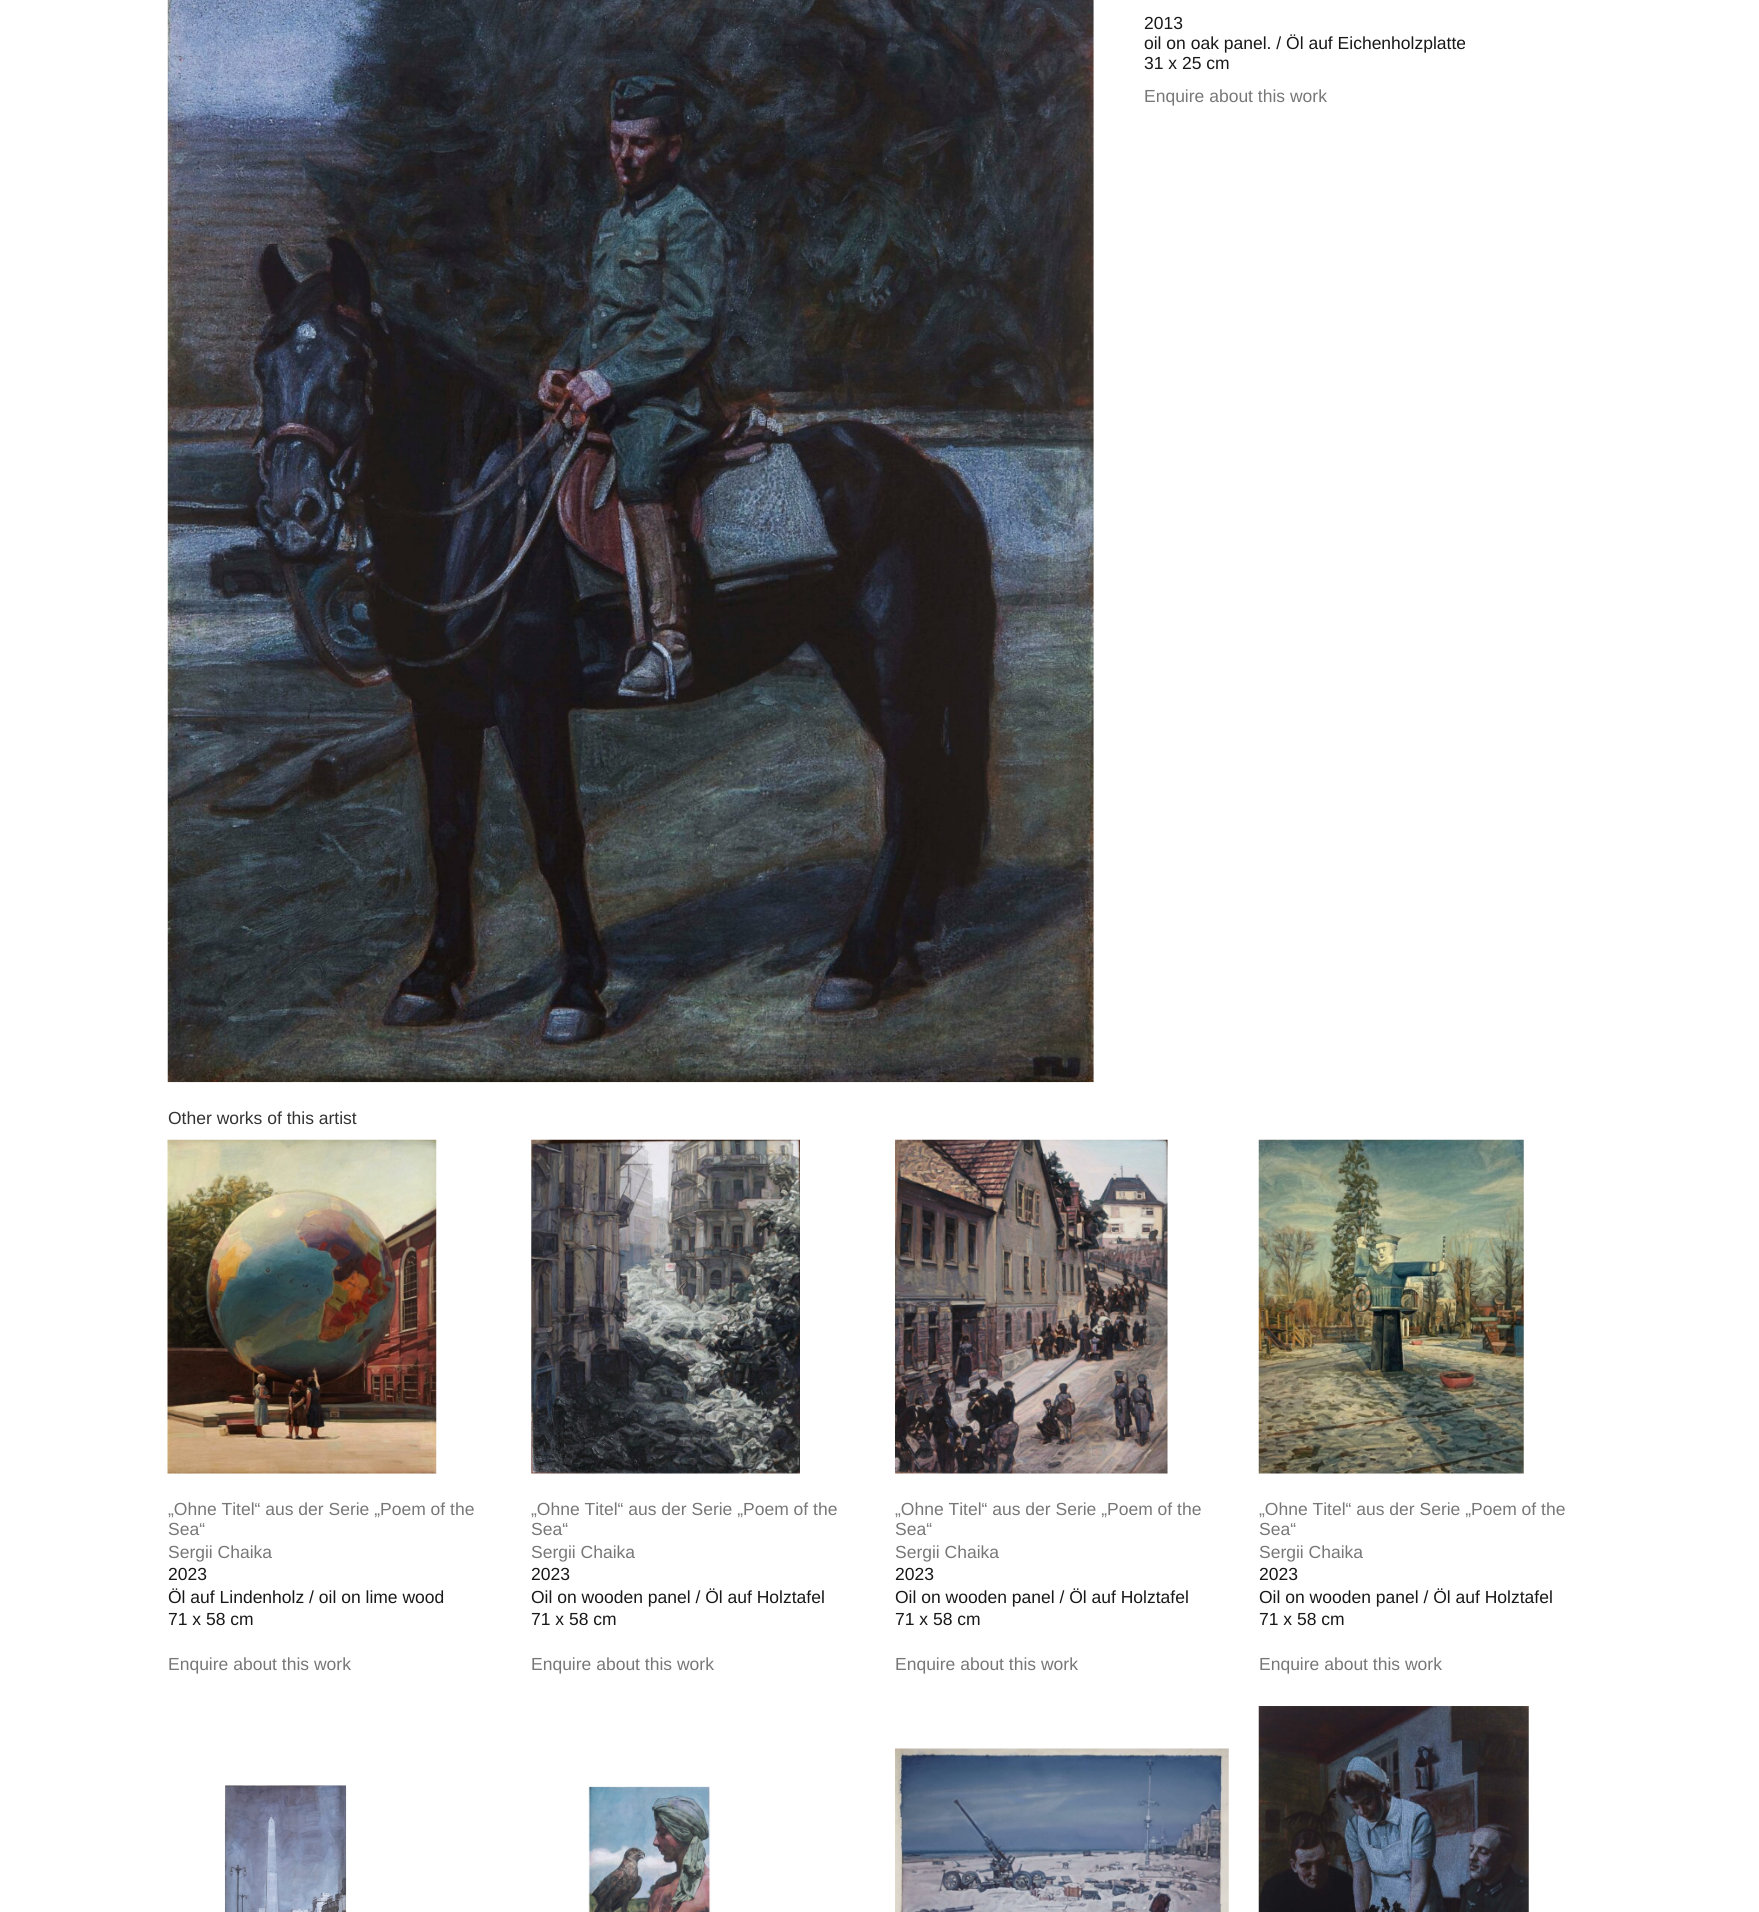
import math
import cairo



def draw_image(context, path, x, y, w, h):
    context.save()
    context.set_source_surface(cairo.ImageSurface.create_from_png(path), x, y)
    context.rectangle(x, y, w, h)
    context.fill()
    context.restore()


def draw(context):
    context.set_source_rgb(1, 1, 1)
    context.paint()
    draw_image(context, "images/1.png", 167, 0, 927, 1083)
    draw_image(context, "images/2.png", 167, 1139, 270, 335)
    draw_image(context, "images/3.png", 531, 1139, 269, 335)
    draw_image(context, "images/4.png", 895, 1139, 273, 335)
    draw_image(context, "images/5.png", 1258, 1139, 266, 335)
    draw_image(context, "images/6.png", 224, 1785, 123, 127)
    draw_image(context, "images/7.png", 588, 1786, 123, 126)
    draw_image(context, "images/8.png", 895, 1748, 334, 164)
    draw_image(context, "images/9.png", 1258, 1706, 271, 206)
    context.select_font_face("Liberation Sans")
    context.set_font_size(17.5)
    context.set_source_rgb(24 / 255, 24 / 255, 24 / 255)
    context.move_to(1144, 29)
    context.show_text("2013")
    context.move_to(1144, 49)
    context.show_text("oil on oak panel. / Öl auf Eichenholzplatte")
    context.move_to(1144, 69)
    context.show_text("31 x 25 cm")
    context.set_source_rgb(119 / 255, 119 / 255, 119 / 255)
    context.move_to(1144, 102)
    context.show_text("Enquire about this work")
    context.set_source_rgb(51 / 255, 51 / 255, 51 / 255)
    context.move_to(168, 1124)
    context.show_text("Other works of this artist")
    context.set_source_rgb(119 / 255, 119 / 255, 119 / 255)
    context.move_to(168, 1515)
    context.show_text("„Ohne Titel“ aus der Serie „Poem of the")
    context.move_to(168, 1535)
    context.show_text("Sea“")
    context.move_to(168, 1558)
    context.show_text("Sergii Chaika")
    context.set_source_rgb(24 / 255, 24 / 255, 24 / 255)
    context.move_to(168, 1580)
    context.show_text("2023")
    context.move_to(168, 1603)
    context.show_text("Öl auf Lindenholz / oil on lime wood")
    context.move_to(168, 1625)
    context.show_text("71 x 58 cm")
    context.set_source_rgb(119 / 255, 119 / 255, 119 / 255)
    context.move_to(168, 1670)
    context.show_text("Enquire about this work")
    context.move_to(531, 1515)
    context.show_text("„Ohne Titel“ aus der Serie „Poem of the")
    context.move_to(531, 1535)
    context.show_text("Sea“")
    context.move_to(531, 1558)
    context.show_text("Sergii Chaika")
    context.set_source_rgb(24 / 255, 24 / 255, 24 / 255)
    context.move_to(531, 1580)
    context.show_text("2023")
    context.move_to(531, 1603)
    context.show_text("Oil on wooden panel / Öl auf Holztafel")
    context.move_to(531, 1625)
    context.show_text("71 x 58 cm")
    context.set_source_rgb(119 / 255, 119 / 255, 119 / 255)
    context.move_to(531, 1670)
    context.show_text("Enquire about this work")
    context.move_to(895, 1515)
    context.show_text("„Ohne Titel“ aus der Serie „Poem of the")
    context.move_to(895, 1535)
    context.show_text("Sea“")
    context.move_to(895, 1558)
    context.show_text("Sergii Chaika")
    context.set_source_rgb(24 / 255, 24 / 255, 24 / 255)
    context.move_to(895, 1580)
    context.show_text("2023")
    context.move_to(895, 1603)
    context.show_text("Oil on wooden panel / Öl auf Holztafel")
    context.move_to(895, 1625)
    context.show_text("71 x 58 cm")
    context.set_source_rgb(119 / 255, 119 / 255, 119 / 255)
    context.move_to(895, 1670)
    context.show_text("Enquire about this work")
    context.move_to(1259, 1515)
    context.show_text("„Ohne Titel“ aus der Serie „Poem of the")
    context.move_to(1259, 1535)
    context.show_text("Sea“")
    context.move_to(1259, 1558)
    context.show_text("Sergii Chaika")
    context.set_source_rgb(24 / 255, 24 / 255, 24 / 255)
    context.move_to(1259, 1580)
    context.show_text("2023")
    context.move_to(1259, 1603)
    context.show_text("Oil on wooden panel / Öl auf Holztafel")
    context.move_to(1259, 1625)
    context.show_text("71 x 58 cm")
    context.set_source_rgb(119 / 255, 119 / 255, 119 / 255)
    context.move_to(1259, 1670)
    context.show_text("Enquire about this work")


surface = cairo.ImageSurface(cairo.Format.RGB24, 1759, 1912)
context = cairo.Context(surface)
options = cairo.FontOptions()
options.set_hint_metrics(cairo.HintMetrics.OFF)
options.set_hint_style(cairo.HintStyle.NONE)
context.set_font_options(options)
context.set_miter_limit(4)
draw(context)
surface.write_to_png("out.png")
